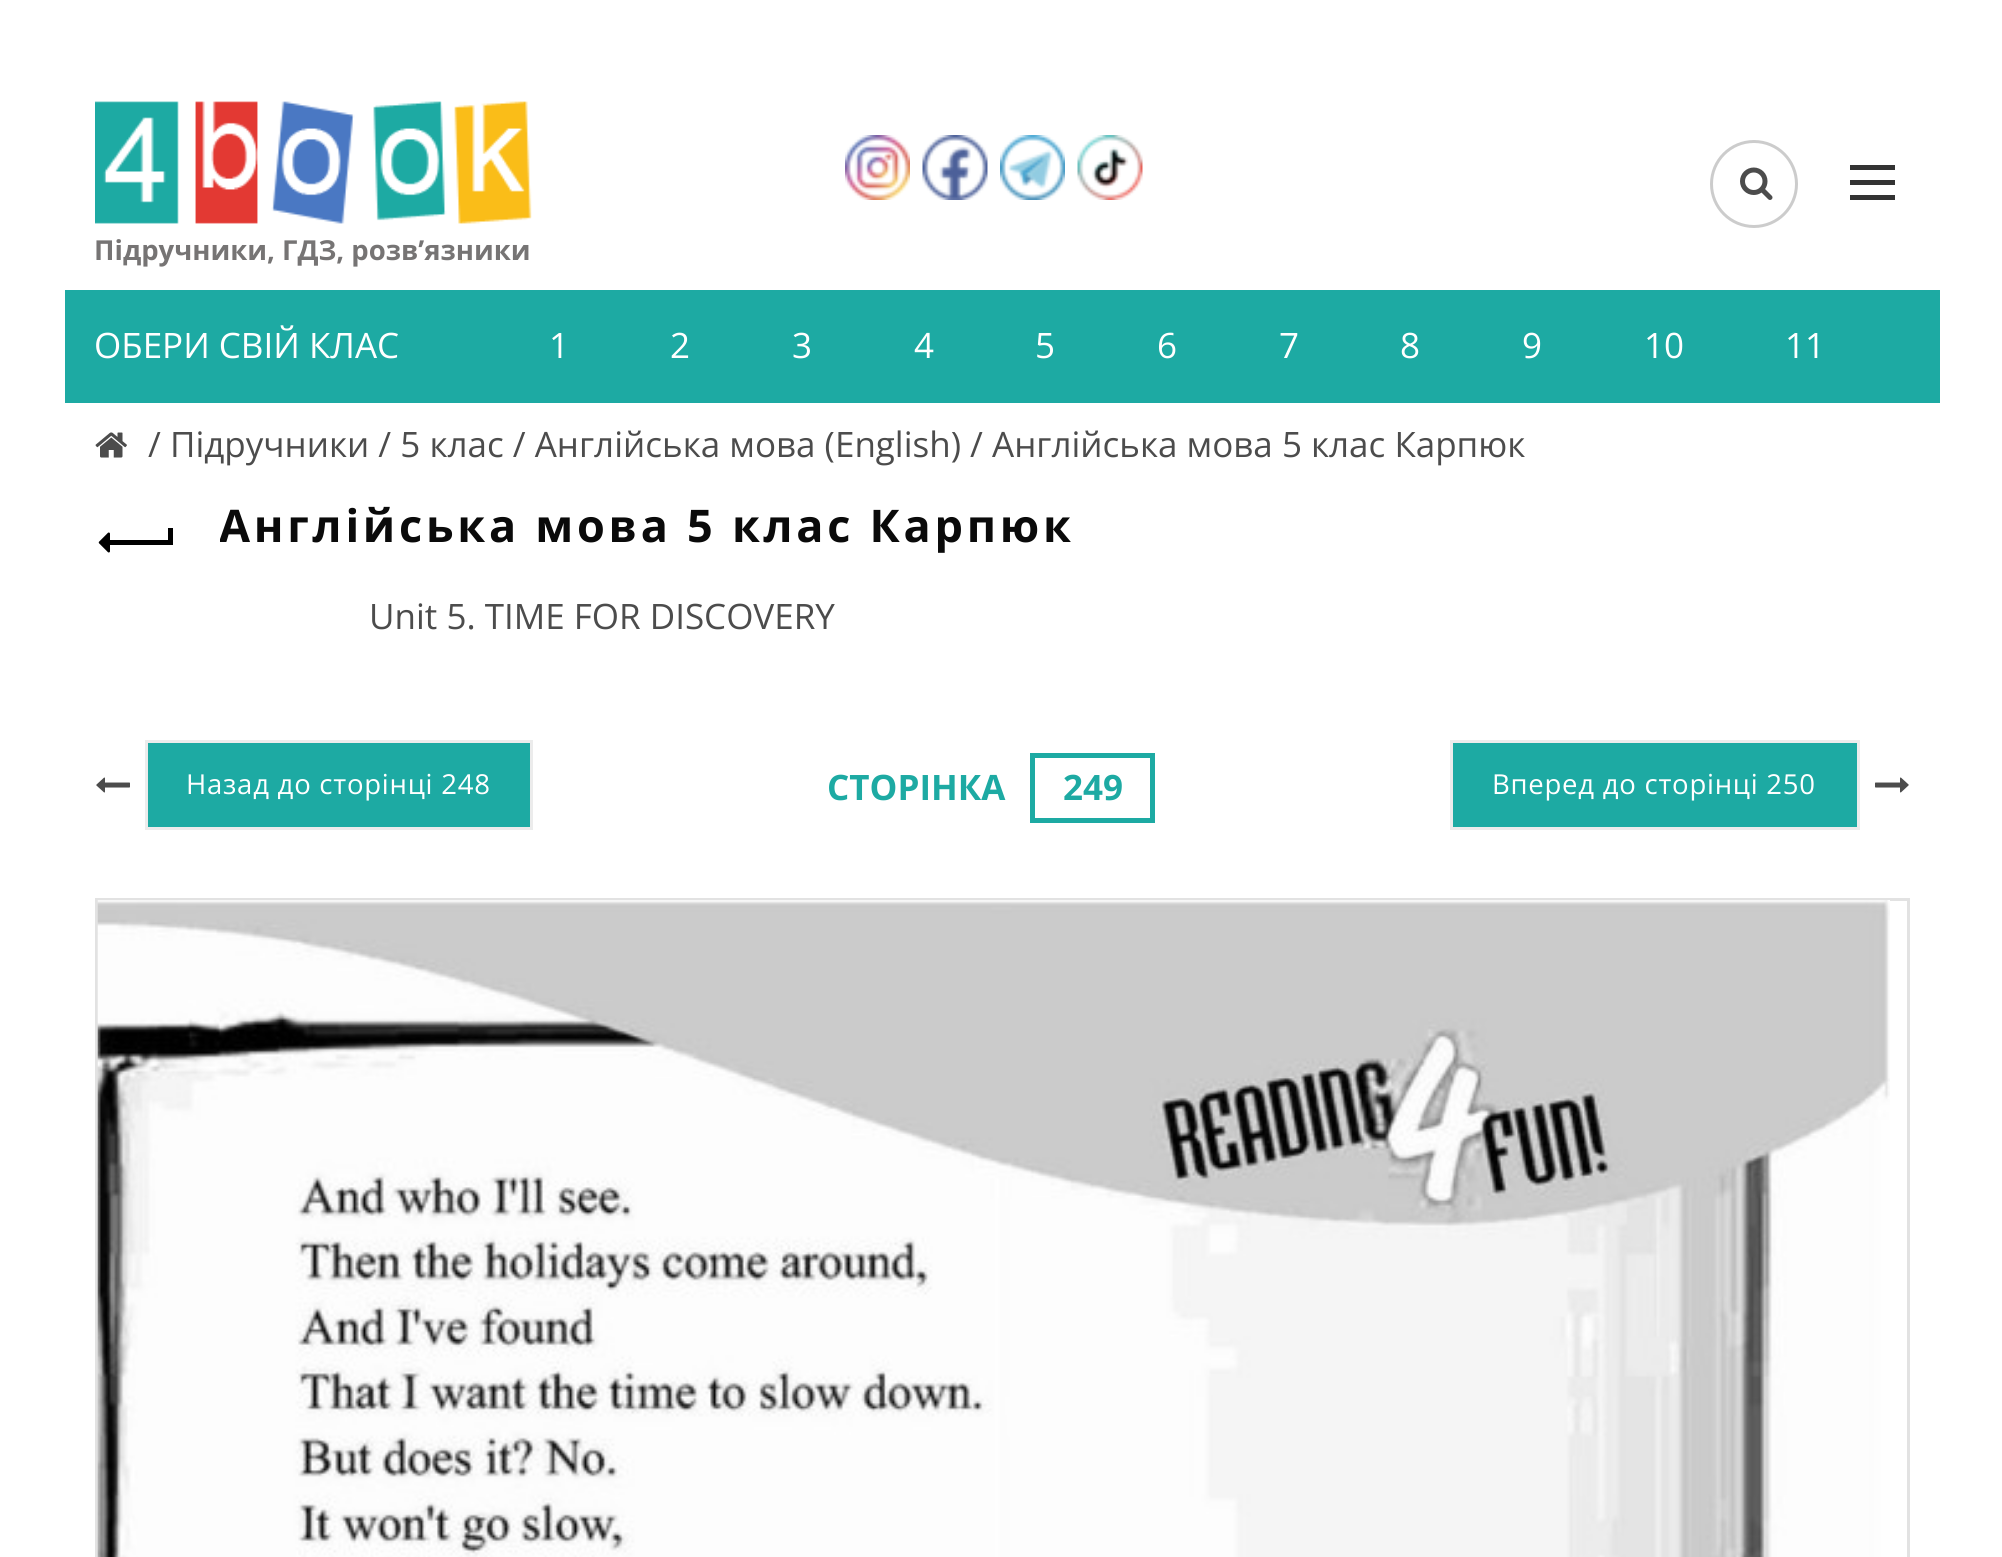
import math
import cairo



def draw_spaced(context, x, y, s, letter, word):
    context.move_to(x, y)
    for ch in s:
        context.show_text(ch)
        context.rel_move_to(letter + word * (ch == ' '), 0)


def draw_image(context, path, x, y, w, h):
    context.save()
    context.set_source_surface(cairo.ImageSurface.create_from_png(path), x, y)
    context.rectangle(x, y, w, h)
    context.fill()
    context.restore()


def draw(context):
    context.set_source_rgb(1, 1, 1)
    context.paint()
    draw_image(context, "images/1.png", 845, 135, 65, 65)
    draw_image(context, "images/2.png", 922, 135, 66, 65)
    draw_image(context, "images/3.png", 1000, 135, 65, 65)
    draw_image(context, "images/4.png", 1077, 135, 66, 65)
    draw_image(context, "images/5.png", 1740, 167, 33, 33)
    context.arc(1754, 184, 42.5, 0, 2 * math.pi)
    context.set_source_rgb(204 / 255, 204 / 255, 204 / 255)
    context.set_line_width(3)
    context.stroke()
    context.set_source_rgb(51 / 255, 51 / 255, 51 / 255)
    context.rectangle(1850, 180, 45, 5)
    context.fill()
    context.rectangle(1850, 165, 45, 5)
    context.fill()
    context.rectangle(1850, 195, 45, 5)
    context.fill()
    draw_image(context, "images/6.png", 95, 101, 437, 123)
    context.set_source_rgb(29 / 255, 170 / 255, 163 / 255)
    context.rectangle(65, 290, 1875, 113)
    context.fill()
    draw_image(context, "images/7.png", 95, 432, 32, 26)
    context.set_source_rgb(0, 0, 0)
    context.rectangle(108, 540, 62, 5)
    context.fill()
    draw_image(context, "images/8.png", 98, 532, 12, 21)
    context.rectangle(168, 528, 5, 17)
    context.fill()
    draw_image(context, "images/9.png", 96, 777, 34, 16)
    context.set_source_rgb(29 / 255, 170 / 255, 163 / 255)
    context.rectangle(146.5, 741.5, 385, 87)
    context.fill_preserve()
    context.set_source_rgb(236 / 255, 236 / 255, 236 / 255)
    context.stroke()
    context.rectangle(1032.5, 755.5, 120, 65)
    context.set_source_rgb(29 / 255, 170 / 255, 163 / 255)
    context.set_line_width(5)
    context.stroke()
    context.rectangle(1451.5, 741.5, 407, 87)
    context.fill_preserve()
    context.set_source_rgb(236 / 255, 236 / 255, 236 / 255)
    context.set_line_width(3)
    context.stroke()
    draw_image(context, "images/10.png", 1875, 777, 34, 16)
    context.rectangle(96.5, 899.5, 1812, 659)
    context.set_source_rgb(226 / 255, 226 / 255, 226 / 255)
    context.stroke()
    draw_image(context, "images/11.png", 97, 900, 1793, 657)
    context.select_font_face("Open Sans", cairo.FontSlant.NORMAL, cairo.FontWeight.BOLD)
    context.set_font_size(27.5)
    context.set_source_rgb(118 / 255, 116 / 255, 116 / 255)
    context.move_to(94, 260)
    context.show_text("Підручники, ГДЗ, розв’язники")
    context.select_font_face("Open Sans")
    context.set_font_size(35)
    context.set_source_rgb(1, 1, 1)
    context.move_to(94, 358)
    context.show_text("ОБЕРИ СВІЙ КЛАС")
    context.move_to(549, 358)
    context.show_text("1")
    context.move_to(670, 358)
    context.show_text("2")
    context.move_to(792, 358)
    context.show_text("3")
    context.move_to(914, 358)
    context.show_text("4")
    context.move_to(1035, 358)
    context.show_text("5")
    context.move_to(1157, 358)
    context.show_text("6")
    context.move_to(1279, 358)
    context.show_text("7")
    context.move_to(1400, 358)
    context.show_text("8")
    context.move_to(1522, 358)
    context.show_text("9")
    context.move_to(1644, 358)
    context.show_text("10")
    context.move_to(1785, 358)
    context.show_text("11")
    context.set_source_rgb(76 / 255, 76 / 255, 76 / 255)
    context.move_to(148, 457)
    context.show_text("/ Підручники / 5 клас / Англійська мова (English) / Англійська мова 5 клас Карпюк")
    context.save()
    context.rectangle(220, 503, 1690, 60)
    context.clip()
    context.select_font_face("Open Sans", cairo.FontSlant.NORMAL, cairo.FontWeight.BOLD)
    context.set_font_size(45)
    context.set_source_rgb(10 / 255, 10 / 255, 10 / 255)
    draw_spaced(context, 219, 542, "Англійська мова 5 клас Карпюк", 3.75, 0)
    context.restore()
    context.move_to(369, 629)
    context.show_text("Unit 5. TIME FOR DISCOVERY")
    context.set_font_size(27.5)
    context.set_source_rgb(1, 1, 1)
    draw_spaced(context, 186, 794, "Назад до сторінці 248", 0.75, 0)
    context.select_font_face("Open Sans", cairo.FontSlant.NORMAL, cairo.FontWeight.BOLD)
    context.set_font_size(35)
    context.set_source_rgb(29 / 255, 170 / 255, 163 / 255)
    context.move_to(827, 800)
    context.show_text("СТОРІНКА")
    context.move_to(1063, 800)
    context.show_text("249")
    context.select_font_face("Open Sans")
    context.set_font_size(27.5)
    context.set_source_rgb(1, 1, 1)
    draw_spaced(context, 1492, 794, "Вперед до сторінці 250", 0.75, 0)


surface = cairo.ImageSurface(cairo.Format.RGB24, 2002, 1557)
context = cairo.Context(surface)
options = cairo.FontOptions()
options.set_hint_metrics(cairo.HintMetrics.OFF)
options.set_hint_style(cairo.HintStyle.NONE)
context.set_font_options(options)
context.set_miter_limit(4)
draw(context)
surface.write_to_png("out.png")
